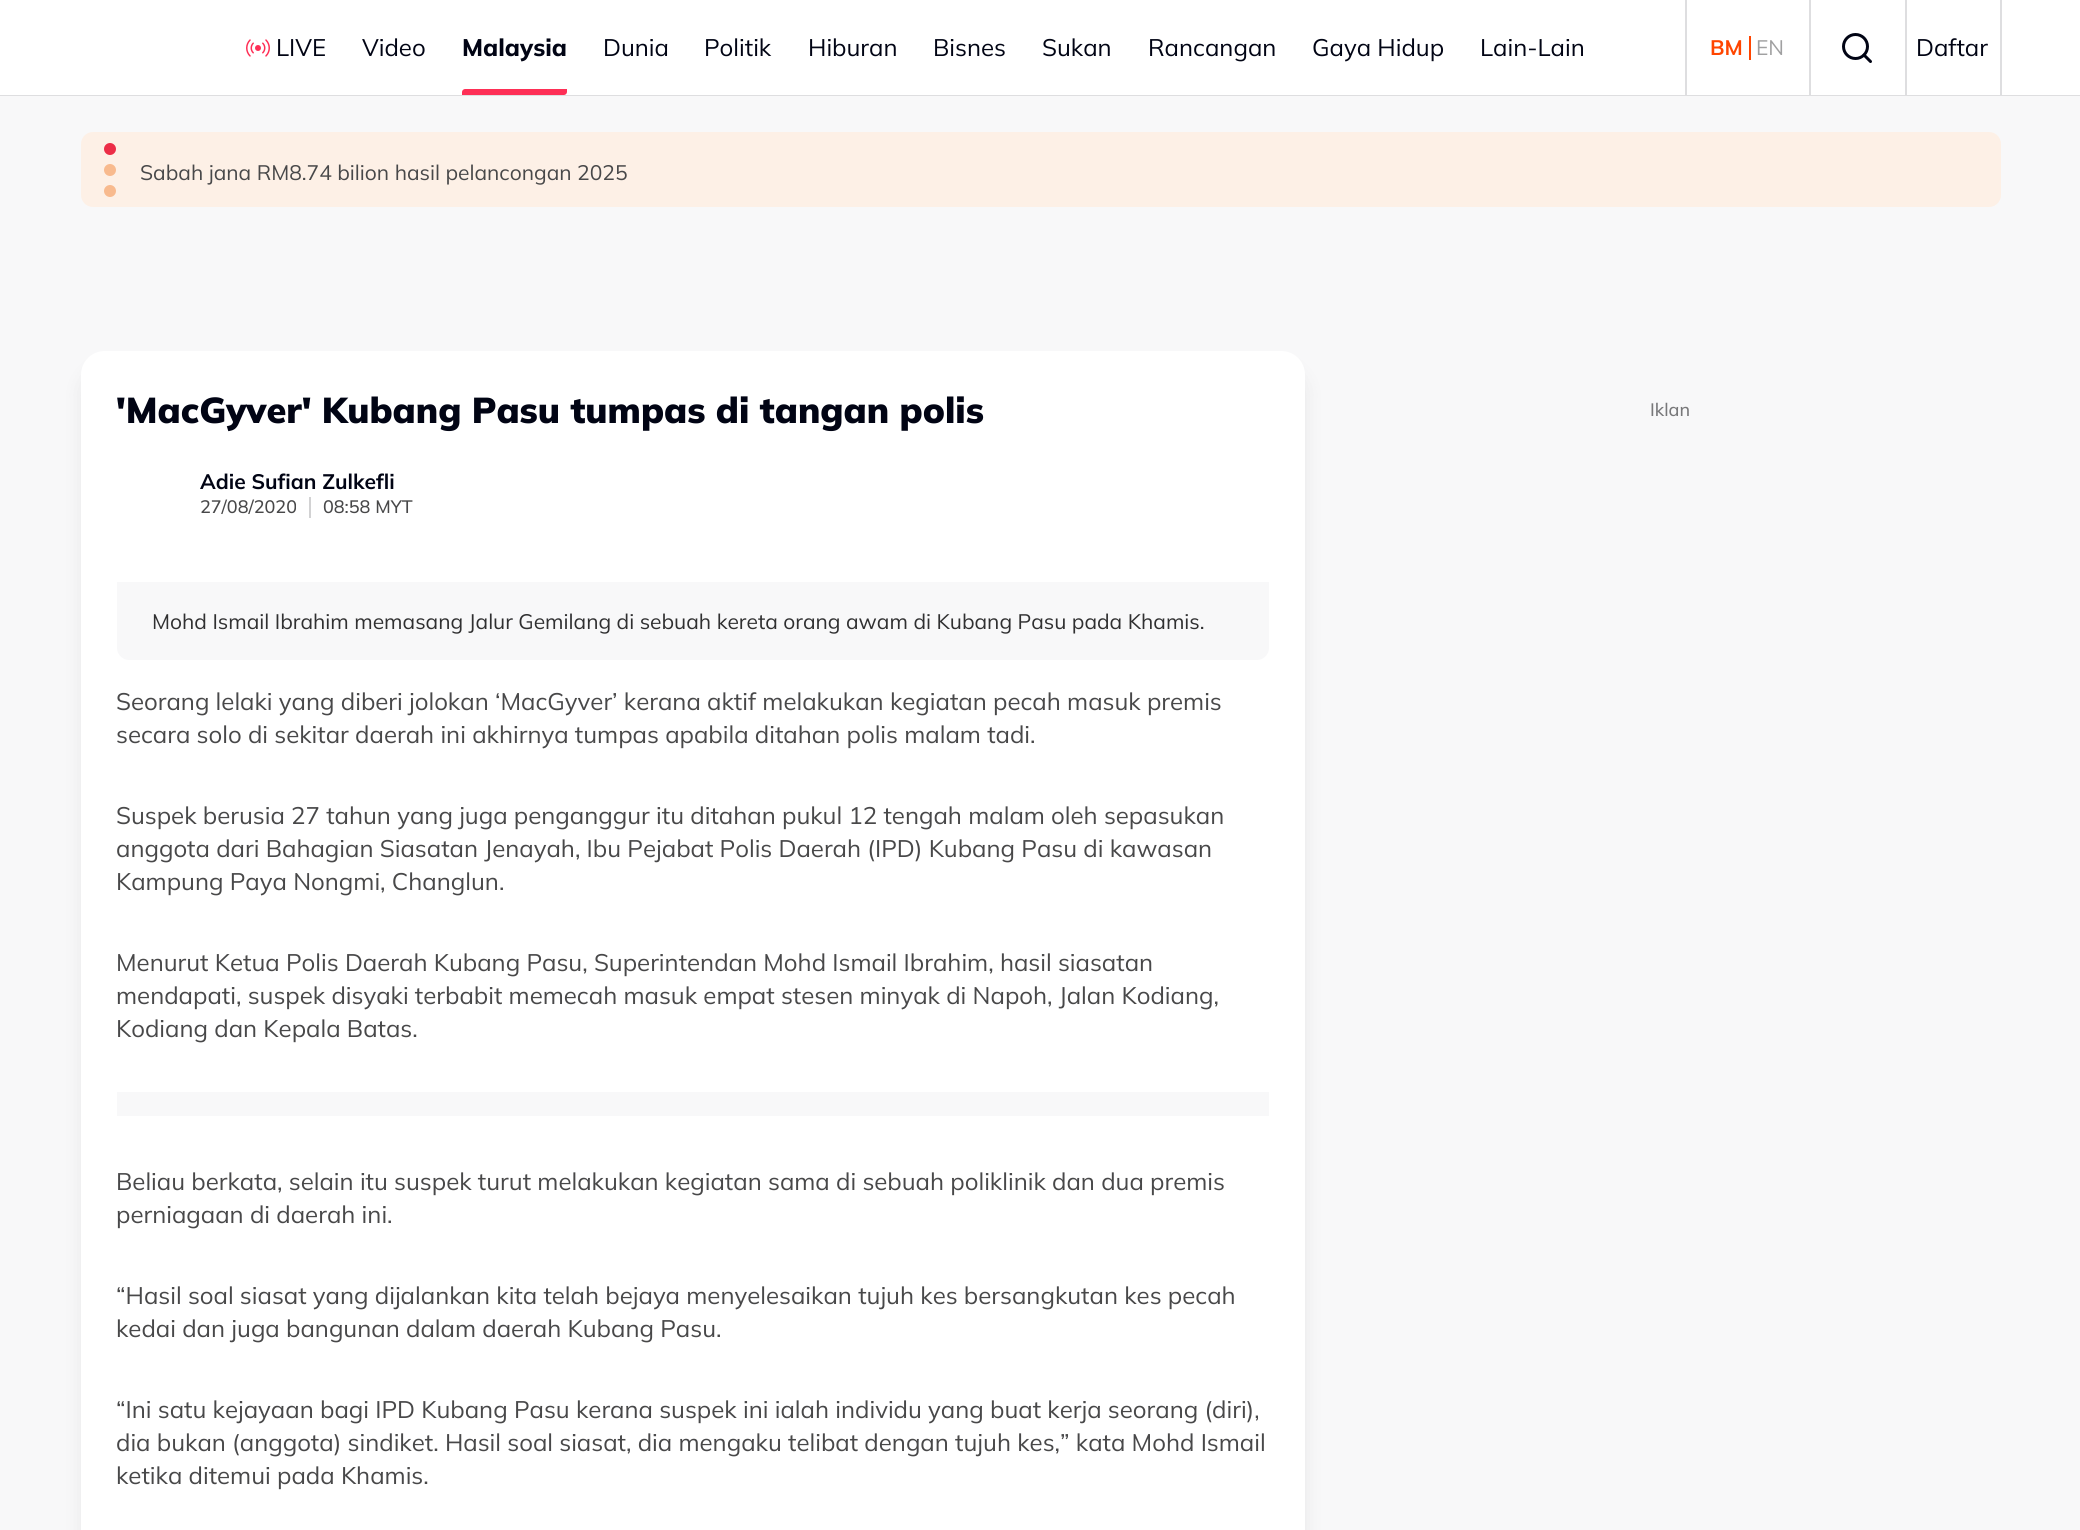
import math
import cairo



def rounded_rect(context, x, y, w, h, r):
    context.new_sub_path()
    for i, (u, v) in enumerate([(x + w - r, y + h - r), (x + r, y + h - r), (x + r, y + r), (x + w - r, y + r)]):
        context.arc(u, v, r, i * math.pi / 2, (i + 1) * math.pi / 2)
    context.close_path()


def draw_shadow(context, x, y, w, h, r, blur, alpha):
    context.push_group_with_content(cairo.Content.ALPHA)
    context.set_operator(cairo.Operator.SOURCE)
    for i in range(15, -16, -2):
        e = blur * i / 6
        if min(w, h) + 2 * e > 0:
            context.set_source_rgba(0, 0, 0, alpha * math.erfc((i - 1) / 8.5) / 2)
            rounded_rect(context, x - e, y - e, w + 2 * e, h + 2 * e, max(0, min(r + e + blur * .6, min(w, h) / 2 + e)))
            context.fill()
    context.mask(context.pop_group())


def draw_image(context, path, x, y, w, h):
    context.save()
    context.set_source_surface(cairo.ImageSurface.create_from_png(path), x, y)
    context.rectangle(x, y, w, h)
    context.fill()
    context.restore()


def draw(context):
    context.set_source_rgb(1, 1, 1)
    context.paint()
    context.set_source_rgb(222 / 255, 222 / 255, 224 / 255)
    context.rectangle(0, 95, 2080, 1)
    context.fill()
    draw_image(context, "images/1.png", 246, 39, 24, 18)
    context.set_source_rgb(254 / 255, 47 / 255, 86 / 255)
    context.new_path()
    context.move_to(465, 89)
    context.line_to(567, 89)
    context.line_to(567, 92)
    context.curve_to(567, 93.5, 565.5, 95, 564, 95)
    context.line_to(462, 95)
    context.line_to(462, 92)
    context.curve_to(462, 90.5, 463.5, 89, 465, 89)
    context.close_path()
    context.fill()
    context.set_source_rgb(222 / 255, 222 / 255, 224 / 255)
    context.rectangle(1685, 0, 2, 95)
    context.fill()
    context.set_source_rgb(1, 69 / 255, 0)
    context.rectangle(1749, 36, 2, 24)
    context.fill()
    context.set_source_rgb(222 / 255, 222 / 255, 224 / 255)
    context.rectangle(1809, 0, 2, 95)
    context.fill()
    context.arc(1855.5, 46.5, 12, 0, 2 * math.pi)
    context.set_source_rgb(1 / 255, 4 / 255, 20 / 255)
    context.set_line_width(3)
    context.stroke()
    context.new_path()
    context.move_to(1870.5, 61.5)
    context.line_to(1864, 55)
    context.set_line_cap(cairo.LineCap.ROUND)
    context.set_line_join(cairo.LineJoin.ROUND)
    context.stroke()
    context.set_source_rgb(222 / 255, 222 / 255, 224 / 255)
    context.rectangle(2000, 0, 2, 95)
    context.fill()
    context.rectangle(1905, 0, 2, 95)
    context.fill()
    context.set_source_rgb(248 / 255, 248 / 255, 249 / 255)
    context.rectangle(0, 96, 2080, 1434)
    context.fill()
    context.set_source_rgb(253 / 255, 240 / 255, 230 / 255)
    rounded_rect(context, 81, 132, 1920, 75, 12)
    context.fill()
    context.set_source_rgb(236 / 255, 45 / 255, 71 / 255)
    context.arc(110, 149, 6, 0, 2 * math.pi)
    context.fill()
    context.set_source_rgb(248 / 255, 186 / 255, 142 / 255)
    context.arc(110, 170, 6, 0, 2 * math.pi)
    context.fill()
    context.arc(110, 191, 6, 0, 2 * math.pi)
    context.fill()
    context.set_source_rgb(0, 0, 0)
    draw_shadow(context, 86, 371, 1215, 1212, 20, 11, 0.1)
    context.set_source_rgb(1, 1, 1)
    context.new_path()
    context.move_to(105, 351)
    context.line_to(1281, 351)
    context.curve_to(1294.5, 351, 1305, 361.5, 1305, 375)
    context.line_to(1305, 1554)
    context.line_to(81, 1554)
    context.line_to(81, 375)
    context.curve_to(81, 361.5, 91.5, 351, 105, 351)
    context.close_path()
    context.fill()
    context.set_source_rgb(210 / 255, 210 / 255, 211 / 255)
    context.rectangle(309, 497, 2, 21)
    context.fill()
    context.set_source_rgb(248 / 255, 248 / 255, 249 / 255)
    context.new_path()
    context.move_to(117, 582)
    context.line_to(1269, 582)
    context.line_to(1269, 648)
    context.curve_to(1269, 654.5, 1263.5, 660, 1257, 660)
    context.line_to(129, 660)
    context.curve_to(122.5, 660, 117, 654.5, 117, 648)
    context.close_path()
    context.fill()
    context.rectangle(117, 1092, 1152, 24)
    context.fill()
    context.select_font_face("Mulish")
    context.set_font_size(24)
    context.set_source_rgb(1 / 255, 4 / 255, 20 / 255)
    context.move_to(276, 56)
    context.show_text("LIVE")
    context.move_to(362, 56)
    context.show_text("Video")
    context.select_font_face("Mulish ExtraBold")
    context.move_to(462, 56)
    context.show_text("Malaysia")
    context.select_font_face("Mulish")
    context.move_to(603, 56)
    context.show_text("Dunia")
    context.move_to(704, 56)
    context.show_text("Politik")
    context.move_to(808, 56)
    context.show_text("Hiburan")
    context.move_to(933, 56)
    context.show_text("Bisnes")
    context.move_to(1042, 56)
    context.show_text("Sukan")
    context.move_to(1148, 56)
    context.show_text("Rancangan")
    context.move_to(1312, 56)
    context.show_text("Gaya Hidup")
    context.move_to(1480, 56)
    context.show_text("Lain-Lain")
    context.select_font_face("Mulish", cairo.FontSlant.NORMAL, cairo.FontWeight.BOLD)
    context.set_font_size(21)
    context.set_source_rgb(1, 69 / 255, 0)
    context.move_to(1710, 55)
    context.show_text("BM")
    context.select_font_face("Mulish")
    context.set_source_rgb(160 / 255, 160 / 255, 161 / 255)
    context.move_to(1756, 55)
    context.show_text("EN")
    context.set_font_size(24)
    context.set_source_rgb(1 / 255, 4 / 255, 20 / 255)
    context.move_to(1916, 56)
    context.show_text("Daftar")
    context.set_font_size(21)
    context.set_source_rgb(72 / 255, 72 / 255, 73 / 255)
    context.move_to(140, 180)
    context.show_text("Sabah jana RM8.74 bilion hasil pelancongan 2025")
    context.select_font_face("Mulish Black")
    context.set_font_size(36)
    context.set_source_rgb(1 / 255, 4 / 255, 20 / 255)
    context.move_to(116, 423)
    context.show_text("'MacGyver' Kubang Pasu tumpas di tangan polis")
    context.select_font_face("Mulish", cairo.FontSlant.NORMAL, cairo.FontWeight.BOLD)
    context.set_font_size(21)
    context.move_to(200, 489)
    context.show_text("Adie Sufian Zulkefli")
    context.select_font_face("Mulish Medium")
    context.set_font_size(18)
    context.set_source_rgb(72 / 255, 72 / 255, 73 / 255)
    context.move_to(200, 513)
    context.show_text("27/08/2020")
    context.move_to(323, 513)
    context.show_text("08:58 MYT")
    context.select_font_face("Mulish")
    context.set_font_size(21)
    context.set_source_rgb(48 / 255, 48 / 255, 49 / 255)
    context.move_to(152, 629)
    context.show_text("Mohd Ismail Ibrahim memasang Jalur Gemilang di sebuah kereta orang awam di Kubang Pasu pada Khamis.")
    context.set_font_size(24)
    context.set_source_rgb(72 / 255, 72 / 255, 73 / 255)
    context.move_to(116, 710)
    context.show_text("Seorang lelaki yang diberi jolokan ‘MacGyver’ kerana aktif melakukan kegiatan pecah masuk premis")
    context.move_to(116, 743)
    context.show_text("secara solo di sekitar daerah ini akhirnya tumpas apabila ditahan polis malam tadi.")
    context.move_to(116, 824)
    context.show_text("Suspek berusia 27 tahun yang juga penganggur itu ditahan pukul 12 tengah malam oleh sepasukan")
    context.move_to(116, 857)
    context.show_text("anggota dari Bahagian Siasatan Jenayah, Ibu Pejabat Polis Daerah (IPD) Kubang Pasu di kawasan")
    context.move_to(116, 890)
    context.show_text("Kampung Paya Nongmi, Changlun.")
    context.move_to(116, 971)
    context.show_text("Menurut Ketua Polis Daerah Kubang Pasu, Superintendan Mohd Ismail Ibrahim, hasil siasatan")
    context.move_to(116, 1004)
    context.show_text("mendapati, suspek disyaki terbabit memecah masuk empat stesen minyak di Napoh, Jalan Kodiang,")
    context.move_to(116, 1037)
    context.show_text("Kodiang dan Kepala Batas.")
    context.move_to(116, 1190)
    context.show_text("Beliau berkata, selain itu suspek turut melakukan kegiatan sama di sebuah poliklinik dan dua premis")
    context.move_to(116, 1223)
    context.show_text("perniagaan di daerah ini.")
    context.move_to(116, 1304)
    context.show_text("“Hasil soal siasat yang dijalankan kita telah bejaya menyelesaikan tujuh kes bersangkutan kes pecah")
    context.move_to(116, 1337)
    context.show_text("kedai dan juga bangunan dalam daerah Kubang Pasu.")
    context.move_to(116, 1418)
    context.show_text("“Ini satu kejayaan bagi IPD Kubang Pasu kerana suspek ini ialah individu yang buat kerja seorang (diri),")
    context.move_to(116, 1451)
    context.show_text("dia bukan (anggota) sindiket. Hasil soal siasat, dia mengaku telibat dengan tujuh kes,” kata Mohd Ismail")
    context.move_to(116, 1484)
    context.show_text("ketika ditemui pada Khamis.")
    context.select_font_face("Mulish Medium")
    context.set_font_size(18)
    context.set_source_rgb(120 / 255, 120 / 255, 122 / 255)
    context.move_to(1650, 416)
    context.show_text("Iklan")


surface = cairo.ImageSurface(cairo.Format.RGB24, 2080, 1530)
context = cairo.Context(surface)
options = cairo.FontOptions()
options.set_hint_metrics(cairo.HintMetrics.OFF)
options.set_hint_style(cairo.HintStyle.NONE)
context.set_font_options(options)
context.set_miter_limit(4)
draw(context)
surface.write_to_png("out.png")
